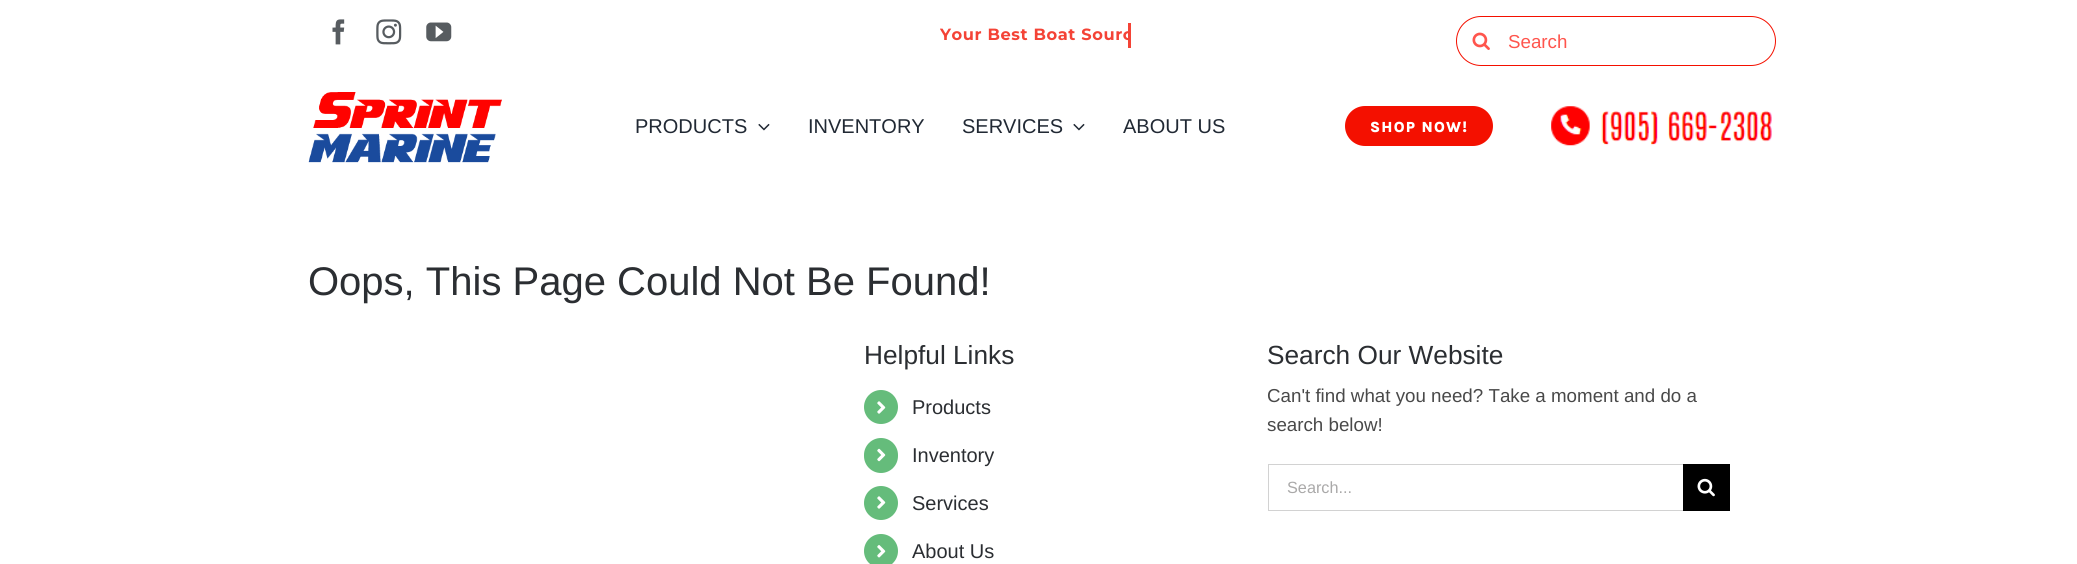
import math
import cairo



def draw_spaced(context, x, y, s, letter, word):
    context.move_to(x, y)
    for ch in s:
        context.show_text(ch)
        context.rel_move_to(letter + word * (ch == ' '), 0)


def rounded_rect(context, x, y, w, h, r):
    context.new_sub_path()
    for i, (u, v) in enumerate([(x + w - r, y + h - r), (x + r, y + h - r), (x + r, y + r), (x + w - r, y + r)]):
        context.arc(u, v, r, i * math.pi / 2, (i + 1) * math.pi / 2)
    context.close_path()


def draw_image(context, path, x, y, w, h):
    context.save()
    context.set_source_surface(cairo.ImageSurface.create_from_png(path), x, y)
    context.rectangle(x, y, w, h)
    context.fill()
    context.restore()


def draw(context):
    context.set_source_rgb(1, 1, 1)
    context.paint()
    draw_image(context, "images/1.png", 332, 19, 13, 26)
    draw_image(context, "images/2.png", 376, 19, 26, 26)
    draw_image(context, "images/3.png", 426, 22, 26, 20)
    context.set_source_rgb(244 / 255, 67 / 255, 54 / 255)
    context.rectangle(1128, 23, 3, 25)
    context.fill()
    rounded_rect(context, 1456.5, 16.5, 319, 49, 24.5)
    context.set_source_rgb(244 / 255, 16 / 255, 0)
    context.set_line_width(1)
    context.stroke()
    draw_image(context, "images/4.png", 1472, 32, 18, 18)
    draw_image(context, "images/5.png", 308, 92, 194, 71)
    draw_image(context, "images/6.png", 758, 123, 12, 8)
    draw_image(context, "images/6.png", 1073, 123, 12, 8)
    rounded_rect(context, 1345, 106, 148, 40, 20)
    context.fill()
    draw_image(context, "images/7.png", 1551, 106, 221, 40)
    context.set_source_rgb(101 / 255, 188 / 255, 123 / 255)
    context.arc(881, 407, 17, 0, 2 * math.pi)
    context.fill()
    draw_image(context, "images/8.png", 877, 401, 9, 13)
    rounded_rect(context, 864, 438, 34, 35, 17)
    context.fill()
    draw_image(context, "images/9.png", 877, 448, 9, 14)
    context.arc(881, 503, 17, 0, 2 * math.pi)
    context.fill()
    draw_image(context, "images/8.png", 877, 496, 9, 13)
    context.arc(881, 551, 17, 0, 2 * math.pi)
    context.fill()
    draw_image(context, "images/10.png", 877, 545, 9, 13)
    context.set_source_rgb(210 / 255, 210 / 255, 210 / 255)
    context.rectangle(1268, 464, 415, 1)
    context.fill()
    context.rectangle(1268, 510, 415, 1)
    context.fill()
    context.rectangle(1268, 464, 1, 47)
    context.fill()
    context.set_source_rgb(0, 0, 0)
    context.rectangle(1683, 464, 47, 47)
    context.fill()
    draw_image(context, "images/11.png", 1697, 478, 18, 19)
    context.save()
    context.rectangle(940, 23, 190, 25)
    context.clip()
    context.select_font_face("Montserrat Thin")
    context.set_font_size(16.25)
    context.set_source_rgb(244 / 255, 67 / 255, 54 / 255)
    draw_spaced(context, 940, 40, "Your Best Boat Sourc", 0.6, 0)
    context.restore()
    context.select_font_face("Liberation Sans")
    context.set_font_size(18.75)
    context.set_source_rgb(1, 85 / 255, 77 / 255)
    context.move_to(1508, 48)
    context.show_text("Search")
    context.set_font_size(20)
    context.set_source_rgb(33 / 255, 41 / 255, 52 / 255)
    context.move_to(635, 133)
    context.show_text("PRODUCTS")
    context.move_to(808, 133)
    context.show_text("INVENTORY")
    context.move_to(962, 133)
    context.show_text("SERVICES")
    context.move_to(1123, 133)
    context.show_text("ABOUT US")
    context.select_font_face("Karla ExtraBold")
    context.set_font_size(15)
    context.set_source_rgb(1, 1, 1)
    draw_spaced(context, 1370, 132, "SHOP NOW!", 1.25, 0)
    context.select_font_face("Liberation Sans")
    context.set_font_size(40)
    context.set_source_rgb(43 / 255, 46 / 255, 50 / 255)
    context.move_to(308, 295)
    context.show_text("Oops, This Page Could Not Be Found!")
    context.set_font_size(26.25)
    context.move_to(864, 364)
    context.show_text("Helpful Links")
    context.set_font_size(20)
    context.move_to(912, 414)
    context.show_text("Products")
    context.move_to(912, 462)
    context.show_text("Inventory")
    context.move_to(912, 510)
    context.show_text("Services")
    context.move_to(912, 558)
    context.show_text("About Us")
    context.set_font_size(26.25)
    context.move_to(1267, 364)
    context.show_text("Search Our Website")
    context.set_font_size(18.75)
    context.set_source_rgb(73 / 255, 73 / 255, 73 / 255)
    context.move_to(1267, 402)
    context.show_text("Can't find what you need? Take a moment and do a")
    context.move_to(1267, 431)
    context.show_text("search below!")
    context.set_font_size(16.25)
    context.set_source_rgb(170 / 255, 169 / 255, 169 / 255)
    context.move_to(1287, 493)
    context.show_text("Search...")


surface = cairo.ImageSurface(cairo.Format.RGB24, 2077, 564)
context = cairo.Context(surface)
options = cairo.FontOptions()
options.set_hint_metrics(cairo.HintMetrics.OFF)
options.set_hint_style(cairo.HintStyle.NONE)
context.set_font_options(options)
context.set_miter_limit(4)
draw(context)
surface.write_to_png("out.png")
